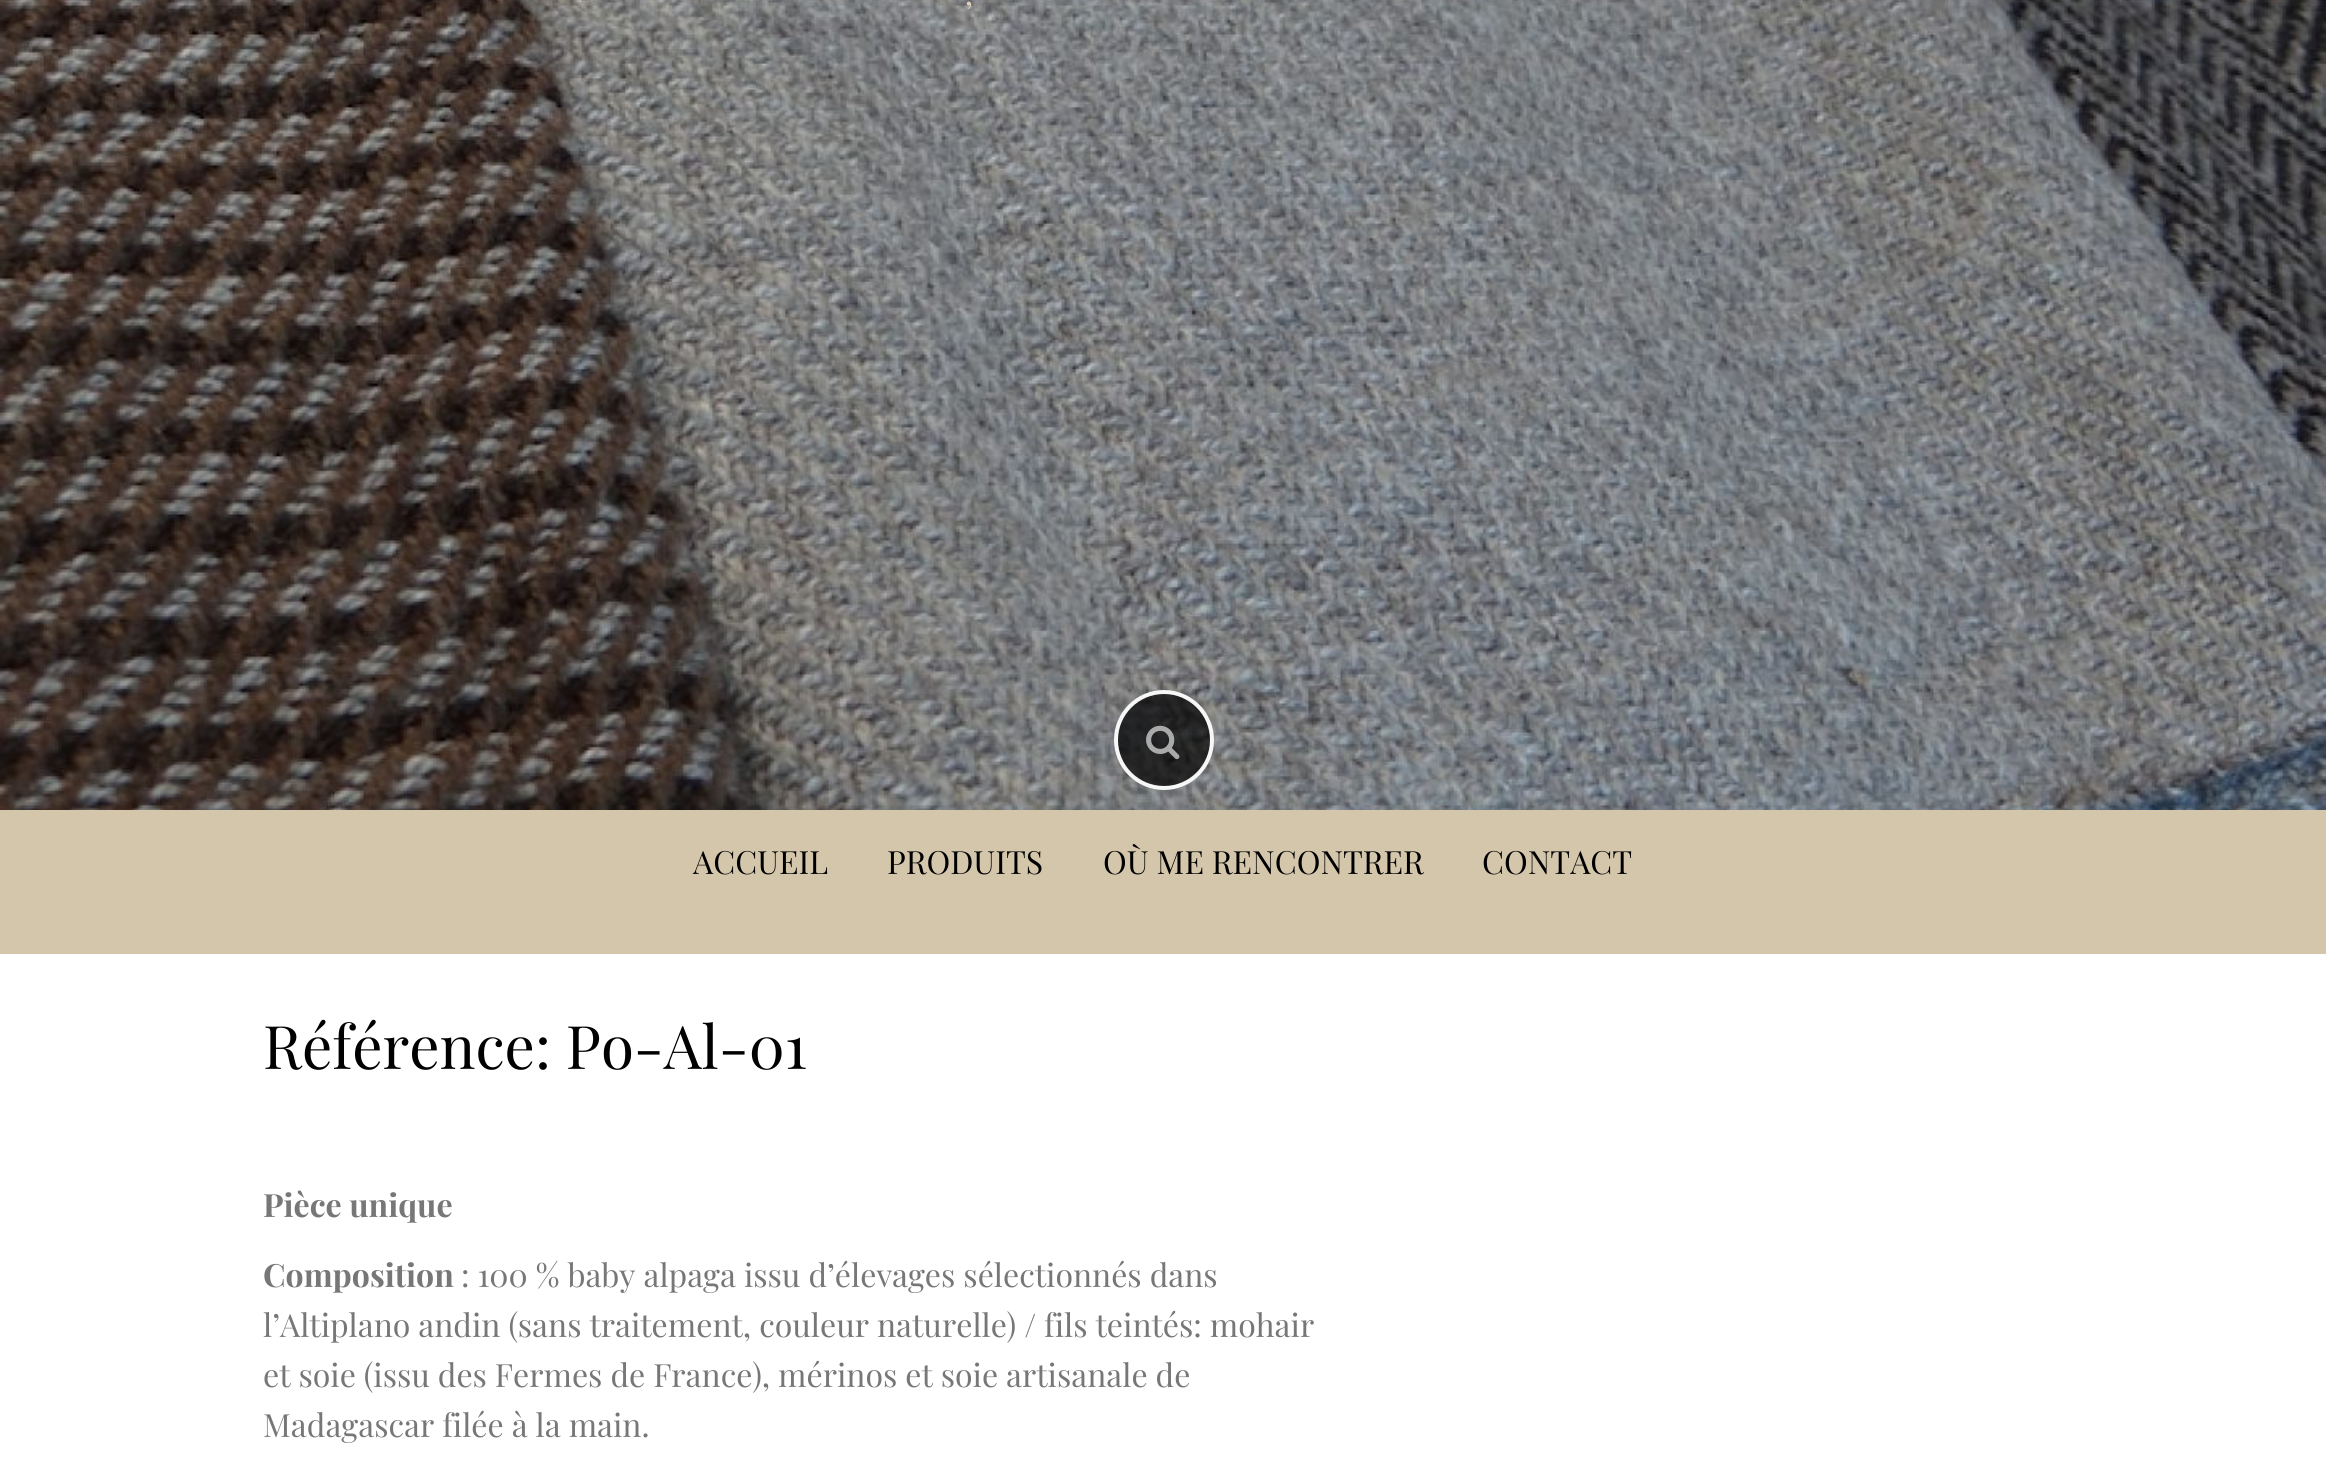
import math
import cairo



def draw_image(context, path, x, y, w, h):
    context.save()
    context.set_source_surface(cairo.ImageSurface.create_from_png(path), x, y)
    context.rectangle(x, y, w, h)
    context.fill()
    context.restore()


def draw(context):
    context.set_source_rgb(211 / 255, 198 / 255, 171 / 255)
    context.paint()
    draw_image(context, "images/1.png", 0, 0, 2326, 810)
    context.set_source_rgba(0, 0, 0, 0.7)
    context.arc(1164, 740, 48, 0, 2 * math.pi)
    context.fill_preserve()
    context.set_source_rgb(247 / 255, 247 / 255, 247 / 255)
    context.set_line_width(4)
    context.stroke()
    draw_image(context, "images/2.png", 1146, 725, 34, 35)
    context.set_source_rgb(1, 1, 1)
    context.rectangle(0, 954, 2326, 504)
    context.fill()
    context.select_font_face("Playfair Display")
    context.set_font_size(30)
    context.set_source_rgb(221 / 255, 211 / 255, 186 / 255)
    context.move_to(965, 5)
    context.show_text(",")
    context.set_font_size(32)
    context.set_source_rgb(0, 0, 0)
    context.move_to(693, 874)
    context.show_text("ACCUEIL")
    context.move_to(887, 874)
    context.show_text("PRODUITS")
    context.move_to(1103, 874)
    context.show_text("OÙ ME RENCONTRER")
    context.move_to(1482, 874)
    context.show_text("CONTACT")
    context.set_font_size(60)
    context.move_to(263, 1069)
    context.show_text("Référence: Po-Al-01")
    context.select_font_face("Playfair Display", cairo.FontSlant.NORMAL, cairo.FontWeight.BOLD)
    context.set_font_size(32)
    context.set_source_rgb(119 / 255, 119 / 255, 119 / 255)
    context.move_to(263, 1217)
    context.show_text("Pièce unique")
    context.move_to(263, 1287)
    context.show_text("Composition")
    context.select_font_face("Playfair Display")
    context.move_to(461, 1287)
    context.show_text(": 100 % baby alpaga issu d’élevages sélectionnés dans")
    context.move_to(263, 1337)
    context.show_text("l’Altiplano andin (sans traitement, couleur naturelle) / fils teintés: mohair")
    context.move_to(263, 1387)
    context.show_text("et soie (issu des Fermes de France), mérinos et soie artisanale de")
    context.move_to(263, 1437)
    context.show_text("Madagascar filée à la main.")


surface = cairo.ImageSurface(cairo.Format.RGB24, 2326, 1458)
context = cairo.Context(surface)
options = cairo.FontOptions()
options.set_hint_metrics(cairo.HintMetrics.OFF)
options.set_hint_style(cairo.HintStyle.NONE)
context.set_font_options(options)
context.set_miter_limit(4)
draw(context)
surface.write_to_png("out.png")
